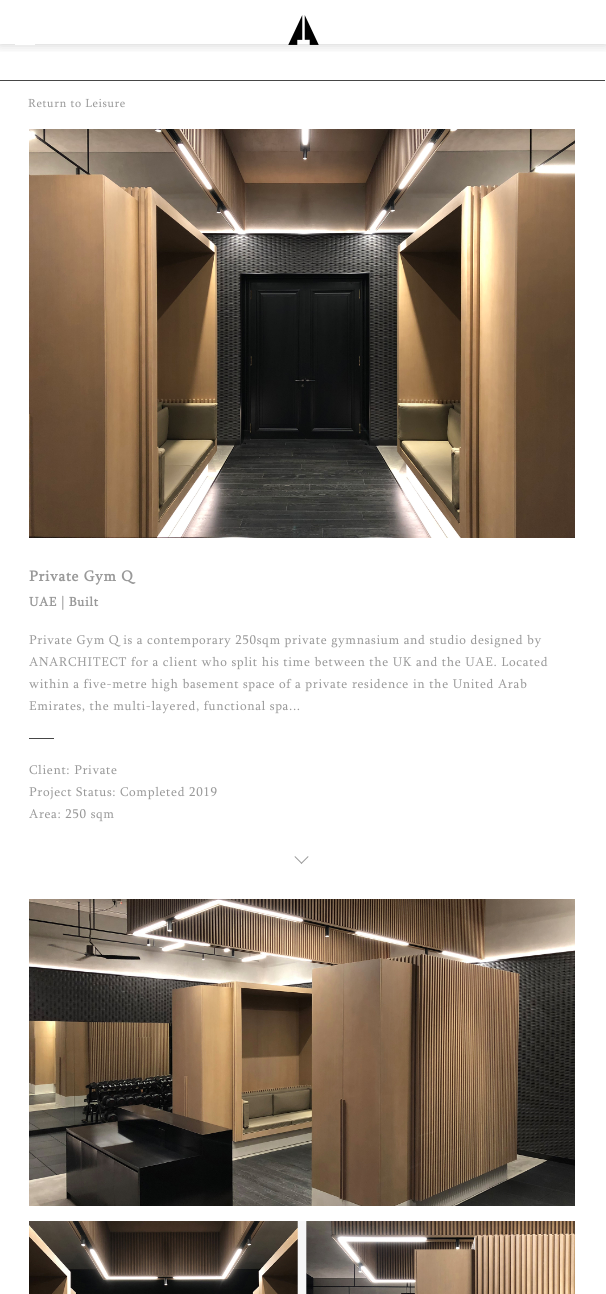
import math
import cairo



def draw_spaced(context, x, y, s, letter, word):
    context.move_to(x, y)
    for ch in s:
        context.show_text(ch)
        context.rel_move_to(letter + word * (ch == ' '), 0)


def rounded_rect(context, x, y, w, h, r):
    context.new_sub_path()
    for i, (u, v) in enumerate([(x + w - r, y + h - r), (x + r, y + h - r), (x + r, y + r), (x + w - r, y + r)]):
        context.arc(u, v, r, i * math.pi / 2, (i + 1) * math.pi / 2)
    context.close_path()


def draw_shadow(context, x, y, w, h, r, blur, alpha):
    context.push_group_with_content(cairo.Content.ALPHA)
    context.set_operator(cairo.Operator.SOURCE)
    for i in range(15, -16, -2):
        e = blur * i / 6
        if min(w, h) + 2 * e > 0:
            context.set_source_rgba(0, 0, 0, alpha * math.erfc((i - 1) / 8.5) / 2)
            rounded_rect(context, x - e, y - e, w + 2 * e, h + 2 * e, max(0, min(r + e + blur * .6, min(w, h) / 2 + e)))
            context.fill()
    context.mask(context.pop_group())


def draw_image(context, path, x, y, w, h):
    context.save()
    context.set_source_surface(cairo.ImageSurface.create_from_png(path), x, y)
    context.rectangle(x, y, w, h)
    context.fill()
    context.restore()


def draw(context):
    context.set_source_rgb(1, 1, 1)
    context.paint()
    context.save()
    context.rectangle(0, 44, 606, 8)
    context.clip()
    context.set_source_rgb(0, 0, 0)
    draw_shadow(context, 0, 0, 606, 44, 0, 6, 0.2)
    context.restore()
    context.set_source_rgb(1, 1, 1)
    context.rectangle(15, 44, 20, 1)
    context.fill()
    draw_image(context, "images/1.png", 288, 15, 31, 30)
    context.set_source_rgb(70 / 255, 70 / 255, 70 / 255)
    context.rectangle(0, 80, 605, 1)
    context.fill()
    draw_image(context, "images/2.png", 29, 129, 546, 409)
    context.rectangle(29, 738, 25, 1)
    context.fill()
    draw_image(context, "images/3.png", 294, 856, 15, 8)
    draw_image(context, "images/4.png", 29, 899, 546, 307)
    draw_image(context, "images/5.png", 29, 1221, 546, 73)
    context.select_font_face("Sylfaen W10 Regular")
    context.set_font_size(12)
    context.set_source_rgb(153 / 255, 153 / 255, 153 / 255)
    draw_spaced(context, 28, 107, "Return to Leisure", 0.6, 0)
    context.select_font_face("Sylfaen W10 Regular", cairo.FontSlant.NORMAL, cairo.FontWeight.BOLD)
    context.set_font_size(15)
    draw_spaced(context, 29, 581, "Private Gym Q", 0.75, 0)
    context.set_font_size(13)
    draw_spaced(context, 29, 606, "UAE | Built", 0.65, 0)
    context.select_font_face("Sylfaen W10 Regular")
    draw_spaced(context, 29, 644, "Private Gym Q is a contemporary 250sqm private gymnasium and studio designed by", 0.65, 0)
    draw_spaced(context, 29, 666, "ANARCHITECT for a client who split his time between the UK and the UAE. Located", 0.65, 0)
    draw_spaced(context, 29, 688, "within a five-metre high basement space of a private residence in the United Arab", 0.65, 0)
    draw_spaced(context, 29, 710, "Emirates, the multi-layered, functional spa...", 0.65, 0)
    draw_spaced(context, 29, 774, "Client: Private", 0.65, 0)
    draw_spaced(context, 29, 796, "Project Status: Completed 2019", 0.65, 0)
    draw_spaced(context, 29, 818, "Area: 250 sqm", 0.65, 0)


surface = cairo.ImageSurface(cairo.Format.RGB24, 606, 1294)
context = cairo.Context(surface)
options = cairo.FontOptions()
options.set_hint_metrics(cairo.HintMetrics.OFF)
options.set_hint_style(cairo.HintStyle.NONE)
context.set_font_options(options)
context.set_miter_limit(4)
draw(context)
surface.write_to_png("out.png")
